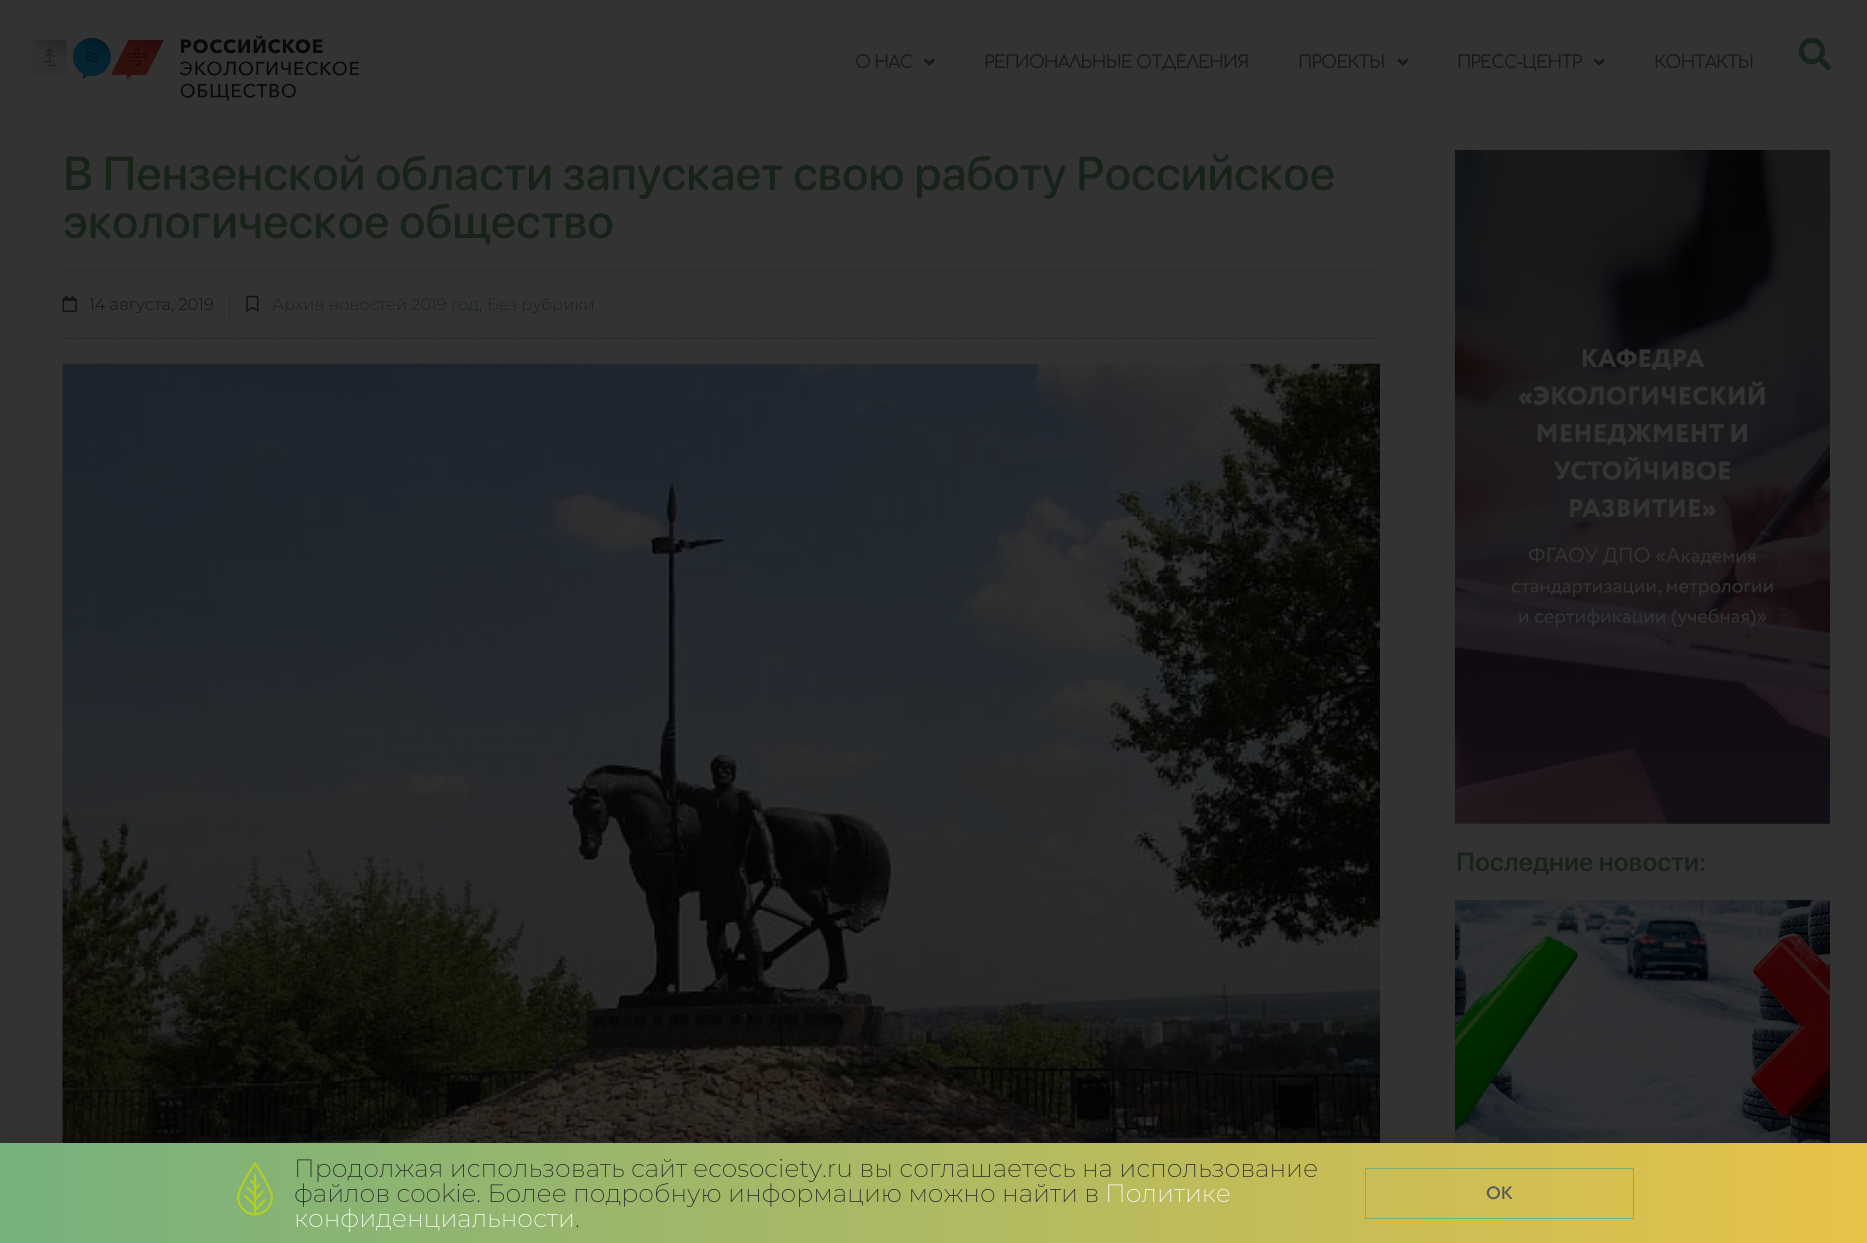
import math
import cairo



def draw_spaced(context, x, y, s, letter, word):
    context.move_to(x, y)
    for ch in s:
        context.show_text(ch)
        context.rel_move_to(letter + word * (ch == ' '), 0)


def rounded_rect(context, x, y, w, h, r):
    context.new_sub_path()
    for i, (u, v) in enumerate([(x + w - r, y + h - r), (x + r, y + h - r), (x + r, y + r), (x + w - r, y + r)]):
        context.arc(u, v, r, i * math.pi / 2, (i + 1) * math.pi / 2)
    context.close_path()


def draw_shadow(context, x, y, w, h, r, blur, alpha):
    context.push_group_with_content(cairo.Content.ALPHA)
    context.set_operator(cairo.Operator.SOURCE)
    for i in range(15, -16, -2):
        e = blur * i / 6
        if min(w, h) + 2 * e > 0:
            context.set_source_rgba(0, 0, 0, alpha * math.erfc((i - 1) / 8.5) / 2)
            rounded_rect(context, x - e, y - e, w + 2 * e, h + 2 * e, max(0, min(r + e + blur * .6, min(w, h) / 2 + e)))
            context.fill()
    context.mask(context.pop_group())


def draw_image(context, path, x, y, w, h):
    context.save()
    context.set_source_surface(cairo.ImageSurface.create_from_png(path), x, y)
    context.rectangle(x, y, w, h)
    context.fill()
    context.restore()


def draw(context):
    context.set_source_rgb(51 / 255, 51 / 255, 51 / 255)
    context.paint()
    draw_image(context, "images/1.png", 32, 35, 328, 66)
    draw_image(context, "images/2.png", 923, 58, 12, 8)
    draw_image(context, "images/3.png", 1397, 58, 12, 8)
    draw_image(context, "images/2.png", 1593, 58, 12, 8)
    draw_image(context, "images/4.png", 1798, 37, 34, 34)
    context.new_path()
    context.move_to(62.5, 270.5)
    context.line_to(1380, 270.5)
    context.set_source_rgb(35 / 255, 35 / 255, 35 / 255)
    context.set_line_width(1.2)
    context.set_dash([1.25, 1.25])
    context.stroke()
    context.new_path()
    context.move_to(62.5, 338)
    context.line_to(1380, 338)
    context.stroke()
    draw_image(context, "images/5.png", 62, 295, 15, 17)
    context.set_source_rgb(44 / 255, 44 / 255, 44 / 255)
    context.rectangle(229, 290, 1, 29)
    context.fill()
    draw_image(context, "images/6.png", 246, 295, 13, 17)
    draw_image(context, "images/7.png", 62, 363, 1318, 780)
    draw_image(context, "images/8.png", 1455, 150, 375, 674)
    draw_image(context, "images/9.png", 1455, 900, 375, 243)
    context.set_source_rgb(0, 0, 0)
    draw_shadow(context, -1, 1149, 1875, 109, 0, 14.5, 0.2)
    gradient = cairo.LinearGradient(0, 1193, 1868, 1193)
    gradient.add_color_stop_rgba(0, 117 / 255, 177 / 255, 125 / 255, 1)
    gradient.add_color_stop_rgba(1, 231 / 255, 194 / 255, 72 / 255, 1)
    context.set_source(gradient)
    context.rectangle(0, 1143, 1867, 100)
    context.fill()
    draw_image(context, "images/10.png", 237, 1162, 36, 54)
    context.rectangle(1365.5, 1168.5, 268, 50)
    context.set_source_rgb(117 / 255, 177 / 255, 125 / 255)
    context.set_line_width(1)
    context.set_dash([])
    context.stroke()
    context.select_font_face("Comfortaa Medium")
    context.set_font_size(17.5)
    context.set_source_rgb(24 / 255, 24 / 255, 24 / 255)
    draw_spaced(context, 855, 68, "О НАС", -1, 0)
    draw_spaced(context, 984, 68, "РЕГИОНАЛЬНЫЕ ОТДЕЛЕНИЯ", -1, 0)
    draw_spaced(context, 1298, 68, "ПРОЕКТЫ", -1, 0)
    draw_spaced(context, 1457, 68, "ПРЕСС-ЦЕНТР", -1, 0)
    draw_spaced(context, 1654, 68, "КОНТАКТЫ", -1, 0)
    context.select_font_face("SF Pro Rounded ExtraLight")
    context.set_font_size(47.5)
    context.set_source_rgb(23 / 255, 35 / 255, 25 / 255)
    context.move_to(63, 190)
    context.show_text("В Пензенской области запускает свою работу Российское")
    context.move_to(63, 238)
    context.show_text("экологическое общество")
    context.select_font_face("Montserrat Light")
    context.set_font_size(16.25)
    context.set_source_rgb(17 / 255, 18 / 255, 19 / 255)
    context.move_to(89, 310)
    context.show_text("14 августа, 2019")
    context.set_source_rgb(23 / 255, 35 / 255, 25 / 255)
    context.move_to(272, 310)
    context.show_text("Архив новостей 2019 год")
    context.set_source_rgb(17 / 255, 18 / 255, 19 / 255)
    context.move_to(479, 310)
    context.show_text(",")
    context.set_source_rgb(23 / 255, 35 / 255, 25 / 255)
    context.move_to(487, 310)
    context.show_text("Без рубрики")
    context.select_font_face("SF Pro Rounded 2 ExtraLight")
    context.set_font_size(26.25)
    context.move_to(1456, 871)
    context.show_text("Последние новости:")
    context.select_font_face("Montserrat ExtraLight")
    context.set_font_size(25)
    context.set_source_rgb(36 / 255, 38 / 255, 41 / 255)
    context.move_to(294, 1177)
    context.show_text("Продолжая использовать сайт ecosociety.ru вы соглашаетесь на использование")
    context.move_to(294, 1202)
    context.show_text("файлов cookie. Более подробную информацию можно найти в")
    context.set_source_rgb(1, 1, 1)
    context.move_to(1105, 1202)
    context.show_text("Политике")
    context.move_to(294, 1227)
    context.show_text("конфиденциальности")
    context.set_source_rgb(36 / 255, 38 / 255, 41 / 255)
    context.move_to(575, 1227)
    context.show_text(".")
    context.select_font_face("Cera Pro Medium")
    context.set_font_size(19)
    context.set_source_rgb(84 / 255, 89 / 255, 95 / 255)
    context.move_to(1486, 1199)
    context.show_text("OK")


surface = cairo.ImageSurface(cairo.Format.RGB24, 1867, 1243)
context = cairo.Context(surface)
options = cairo.FontOptions()
options.set_hint_metrics(cairo.HintMetrics.OFF)
options.set_hint_style(cairo.HintStyle.NONE)
context.set_font_options(options)
context.set_miter_limit(4)
draw(context)
surface.write_to_png("out.png")
